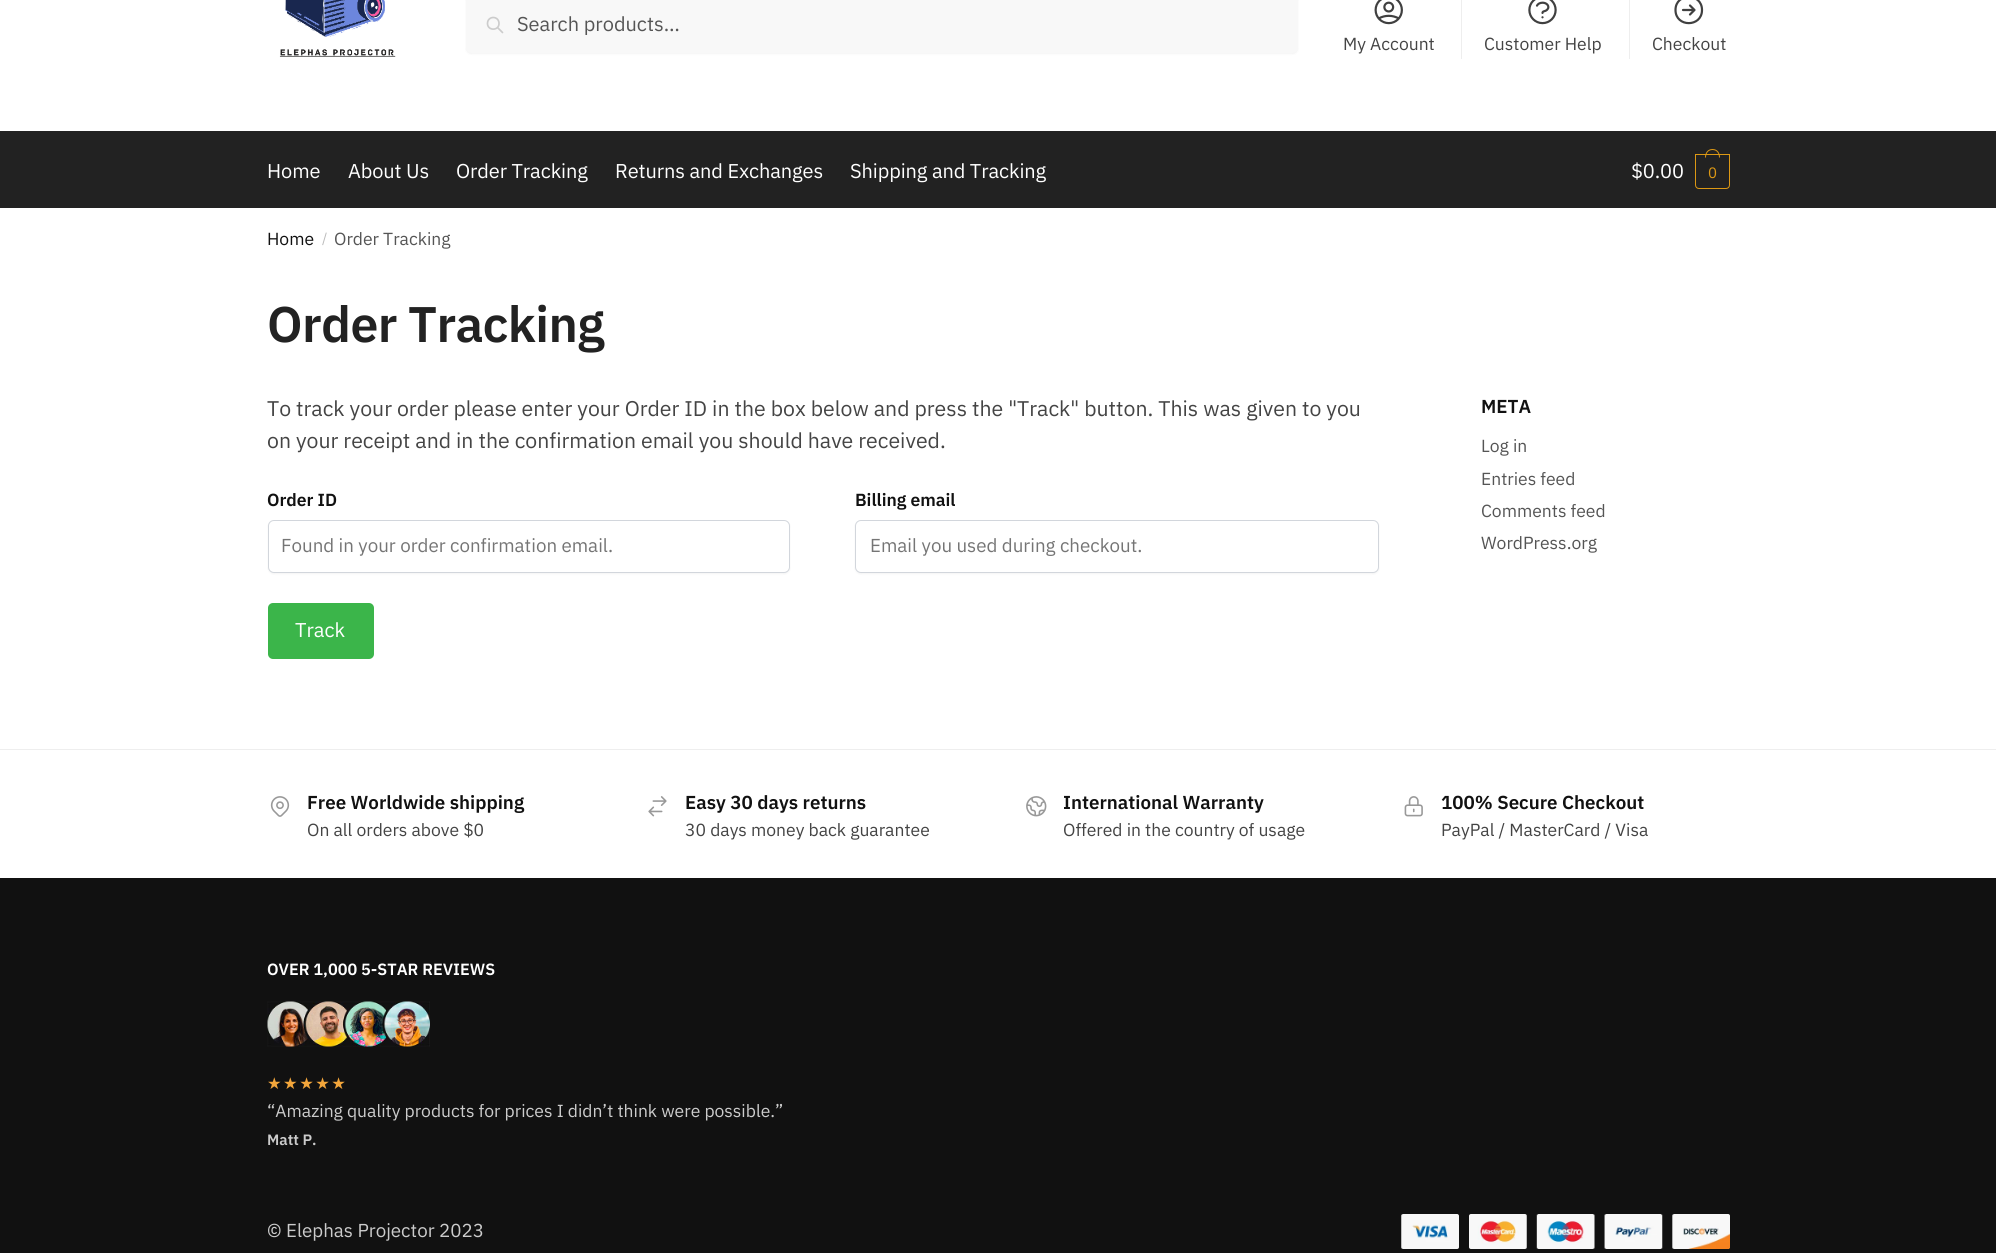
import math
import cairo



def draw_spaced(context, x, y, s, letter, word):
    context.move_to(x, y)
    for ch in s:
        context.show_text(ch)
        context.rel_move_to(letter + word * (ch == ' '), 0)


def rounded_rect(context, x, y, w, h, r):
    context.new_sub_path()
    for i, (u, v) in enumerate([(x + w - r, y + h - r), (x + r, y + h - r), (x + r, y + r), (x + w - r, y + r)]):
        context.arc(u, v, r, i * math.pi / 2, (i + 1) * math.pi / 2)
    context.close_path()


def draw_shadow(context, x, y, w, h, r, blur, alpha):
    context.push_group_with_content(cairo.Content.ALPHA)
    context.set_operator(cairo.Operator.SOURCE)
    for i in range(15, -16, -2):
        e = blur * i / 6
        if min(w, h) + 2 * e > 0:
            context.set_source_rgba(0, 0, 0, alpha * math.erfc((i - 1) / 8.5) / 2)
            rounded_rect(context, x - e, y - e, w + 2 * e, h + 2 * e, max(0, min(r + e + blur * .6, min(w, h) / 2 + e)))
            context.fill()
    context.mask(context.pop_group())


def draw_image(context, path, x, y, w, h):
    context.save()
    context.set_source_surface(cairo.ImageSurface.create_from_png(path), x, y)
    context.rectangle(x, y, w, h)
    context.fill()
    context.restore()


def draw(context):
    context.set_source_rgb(1, 1, 1)
    context.paint()
    draw_image(context, "images/1.png", 279, 0, 117, 57)
    context.set_source_rgb(0, 0, 0)
    draw_shadow(context, 466, -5, 832, 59, 5, 1, 0.05)
    context.set_source_rgb(248 / 255, 248 / 255, 248 / 255)
    rounded_rect(context, 466, -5, 832, 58, 5)
    context.fill()
    context.new_path()
    context.move_to(502.5, 32.5)
    context.line_to(497.5, 27.5)
    context.move_to(499, 23.5)
    context.curve_to(499, 31, 487.5, 31, 487.5, 23.5)
    context.curve_to(487.5, 15.5, 499, 15.5, 499, 23.5)
    context.close_path()
    context.set_source_rgb(204 / 255, 204 / 255, 204 / 255)
    context.set_line_width(1.7)
    context.set_line_cap(cairo.LineCap.ROUND)
    context.set_line_join(cairo.LineJoin.ROUND)
    context.stroke()
    draw_image(context, "images/2.png", 1374, 0, 29, 25)
    context.set_source_rgb(238 / 255, 238 / 255, 238 / 255)
    context.rectangle(1461, 0, 1, 59)
    context.fill()
    draw_image(context, "images/3.png", 1528, 0, 29, 25)
    context.rectangle(1629, 0, 1, 59)
    context.fill()
    context.new_path()
    context.move_to(1690, 5.5)
    context.line_to(1694.5, 10)
    context.move_to(1694.5, 10)
    context.line_to(1690, 14.5)
    context.move_to(1694.5, 10)
    context.line_to(1683, 10)
    context.move_to(1702, 10)
    context.curve_to(1702, 27.5, 1675.5, 27.5, 1675.5, 10)
    context.curve_to(1675.5, -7.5, 1702, -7.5, 1702, 10)
    context.close_path()
    context.set_source_rgb(64 / 255, 64 / 255, 64 / 255)
    context.set_line_width(2.2)
    context.stroke()
    context.set_source_rgb(34 / 255, 34 / 255, 34 / 255)
    context.rectangle(0, 131, 1996, 77)
    context.fill()
    context.new_path()
    context.move_to(1695.5, 154.5)
    context.line_to(1729.5, 154.5)
    context.line_to(1729.5, 185)
    context.curve_to(1729.5, 187, 1728, 188.5, 1726, 188.5)
    context.line_to(1699, 188.5)
    context.curve_to(1697, 188.5, 1695.5, 187, 1695.5, 185)
    context.close_path()
    context.set_source_rgb(220 / 255, 152 / 255, 20 / 255)
    context.set_line_width(1)
    context.set_line_cap(cairo.LineCap.BUTT)
    context.set_line_join(cairo.LineJoin.MITER)
    context.stroke()
    context.set_fill_rule(cairo.FillRule.EVEN_ODD)
    context.new_path()
    context.move_to(1712.5, 149)
    context.curve_to(1717.5, 149, 1720, 153, 1720, 157.5)
    context.line_to(1705, 157.5)
    context.curve_to(1705, 153, 1707.5, 149, 1712.5, 149)
    context.close_path()
    context.move_to(1712.5, 150)
    context.curve_to(1717, 150, 1719, 153.5, 1719, 157.5)
    context.line_to(1706, 157.5)
    context.curve_to(1706, 153.5, 1708, 150, 1712.5, 150)
    context.close_path()
    context.fill()
    context.set_source_rgb(0, 0, 0)
    draw_shadow(context, 268, 521, 522, 53, 6, 1, 0.05)
    context.set_source_rgb(1, 1, 1)
    rounded_rect(context, 268.5, 520.5, 521, 52, 5.5)
    context.fill_preserve()
    context.set_source_rgb(210 / 255, 214 / 255, 220 / 255)
    context.stroke()
    context.set_source_rgb(0, 0, 0)
    draw_shadow(context, 855, 521, 524, 53, 6, 1, 0.05)
    context.set_source_rgb(1, 1, 1)
    rounded_rect(context, 855.5, 520.5, 523, 52, 5.5)
    context.fill_preserve()
    context.set_source_rgb(210 / 255, 214 / 255, 220 / 255)
    context.stroke()
    context.set_source_rgb(59 / 255, 181 / 255, 74 / 255)
    rounded_rect(context, 268, 603, 106, 56, 5)
    context.fill()
    context.set_source_rgb(238 / 255, 238 / 255, 238 / 255)
    context.rectangle(0, 749, 1996, 1)
    context.fill()
    draw_image(context, "images/4.png", 270, 796, 20, 21)
    draw_image(context, "images/5.png", 648, 796, 19, 21)
    draw_image(context, "images/6.png", 1026, 796, 21, 21)
    draw_image(context, "images/7.png", 1404, 796, 19, 21)
    context.set_source_rgb(17 / 255, 17 / 255, 17 / 255)
    context.rectangle(0, 878, 1996, 375)
    context.fill()
    draw_image(context, "images/8.png", 267, 1001, 163, 46)
    draw_image(context, "images/9.png", 1401, 1214, 329, 35)
    context.select_font_face("IBM Plex Sans")
    context.set_font_size(20)
    context.set_source_rgb(85 / 255, 85 / 255, 85 / 255)
    context.move_to(517, 31)
    context.show_text("Search products…")
    context.set_font_size(17.5)
    context.set_source_rgb(68 / 255, 68 / 255, 68 / 255)
    context.move_to(1343, 50)
    context.show_text("My Account")
    context.move_to(1484, 50)
    context.show_text("Customer Help")
    context.move_to(1652, 50)
    context.show_text("Checkout")
    context.set_font_size(20)
    context.set_source_rgb(1, 1, 1)
    draw_spaced(context, 267, 178, "Home", -0.1, 0)
    draw_spaced(context, 348, 178, "About Us", -0.1, 0)
    draw_spaced(context, 456, 178, "Order Tracking", -0.1, 0)
    draw_spaced(context, 615, 178, "Returns and Exchanges", -0.1, 0)
    draw_spaced(context, 850, 178, "Shipping and Tracking", -0.1, 0)
    draw_spaced(context, 1631, 178, "$0.00", -0.1, 0)
    context.set_font_size(15)
    context.set_source_rgb(220 / 255, 152 / 255, 20 / 255)
    draw_spaced(context, 1708, 178, "0", -1, 0)
    context.set_font_size(17.5)
    context.set_source_rgb(17 / 255, 17 / 255, 17 / 255)
    context.move_to(267, 245)
    context.show_text("Home")
    context.set_font_size(14)
    context.set_source_rgb(187 / 255, 187 / 255, 187 / 255)
    context.move_to(322, 243)
    context.show_text("/")
    context.set_font_size(17.5)
    context.set_source_rgb(85 / 255, 85 / 255, 85 / 255)
    context.move_to(334, 245)
    context.show_text("Order Tracking")
    context.select_font_face("IBM Plex Sans SemiBold")
    context.set_font_size(50)
    context.set_source_rgb(34 / 255, 34 / 255, 34 / 255)
    draw_spaced(context, 267, 342, "Order Tracking", -0.6, 0)
    context.select_font_face("IBM Plex Sans")
    context.set_font_size(21.25)
    context.set_source_rgb(68 / 255, 68 / 255, 68 / 255)
    context.move_to(267, 416)
    context.show_text("To track your order please enter your Order ID in the box below and press the \"Track\" button. This was given to you")
    context.move_to(267, 448)
    context.show_text("on your receipt and in the confirmation email you should have received.")
    context.select_font_face("IBM Plex Sans SemiBold")
    context.set_font_size(17.5)
    context.set_source_rgb(17 / 255, 17 / 255, 17 / 255)
    context.move_to(267, 506)
    context.show_text("Order ID")
    context.select_font_face("IBM Plex Sans")
    context.set_font_size(18.75)
    context.set_source_rgb(117 / 255, 117 / 255, 117 / 255)
    context.move_to(281, 552)
    context.show_text("Found in your order confirmation email.")
    context.select_font_face("IBM Plex Sans SemiBold")
    context.set_font_size(17.5)
    context.set_source_rgb(17 / 255, 17 / 255, 17 / 255)
    context.move_to(855, 506)
    context.show_text("Billing email")
    context.select_font_face("IBM Plex Sans")
    context.set_font_size(18.75)
    context.set_source_rgb(117 / 255, 117 / 255, 117 / 255)
    context.move_to(870, 552)
    context.show_text("Email you used during checkout.")
    context.set_font_size(20)
    context.set_source_rgb(1, 1, 1)
    context.move_to(295, 637)
    context.show_text("Track")
    context.select_font_face("IBM Plex Sans SemiBold")
    context.set_font_size(18.75)
    context.set_source_rgb(17 / 255, 17 / 255, 17 / 255)
    context.move_to(1481, 413)
    context.show_text("META")
    context.select_font_face("IBM Plex Sans")
    context.set_font_size(17.5)
    context.set_source_rgb(85 / 255, 85 / 255, 85 / 255)
    context.move_to(1481, 452)
    context.show_text("Log in")
    context.move_to(1481, 485)
    context.show_text("Entries feed")
    context.move_to(1481, 517)
    context.show_text("Comments feed")
    context.move_to(1481, 549)
    context.show_text("WordPress.org")
    context.select_font_face("IBM Plex Sans SemiBold")
    context.set_font_size(18.75)
    context.set_source_rgb(17 / 255, 17 / 255, 17 / 255)
    context.move_to(307, 809)
    context.show_text("Free Worldwide shipping")
    context.select_font_face("IBM Plex Sans")
    context.set_font_size(17.5)
    context.set_source_rgb(68 / 255, 68 / 255, 68 / 255)
    context.move_to(307, 836)
    context.show_text("On all orders above $0")
    context.select_font_face("IBM Plex Sans SemiBold")
    context.set_font_size(18.75)
    context.set_source_rgb(17 / 255, 17 / 255, 17 / 255)
    context.move_to(685, 809)
    context.show_text("Easy 30 days returns")
    context.select_font_face("IBM Plex Sans")
    context.set_font_size(17.5)
    context.set_source_rgb(68 / 255, 68 / 255, 68 / 255)
    context.move_to(685, 836)
    context.show_text("30 days money back guarantee")
    context.select_font_face("IBM Plex Sans SemiBold")
    context.set_font_size(18.75)
    context.set_source_rgb(17 / 255, 17 / 255, 17 / 255)
    context.move_to(1063, 809)
    context.show_text("International Warranty")
    context.select_font_face("IBM Plex Sans")
    context.set_font_size(17.5)
    context.set_source_rgb(68 / 255, 68 / 255, 68 / 255)
    context.move_to(1063, 836)
    context.show_text("Offered in the country of usage")
    context.select_font_face("IBM Plex Sans SemiBold")
    context.set_font_size(18.75)
    context.set_source_rgb(17 / 255, 17 / 255, 17 / 255)
    context.move_to(1441, 809)
    context.show_text("100% Secure Checkout")
    context.select_font_face("IBM Plex Sans")
    context.set_font_size(17.5)
    context.set_source_rgb(68 / 255, 68 / 255, 68 / 255)
    context.move_to(1441, 836)
    context.show_text("PayPal / MasterCard / Visa")
    context.select_font_face("IBM Plex Sans SemiBold")
    context.set_font_size(16.25)
    context.set_source_rgb(1, 1, 1)
    context.move_to(267, 975)
    context.show_text("OVER 1,000 5-STAR REVIEWS")
    context.select_font_face("DejaVu Sans")
    context.set_source_rgb(243 / 255, 166 / 255, 59 / 255)
    draw_spaced(context, 267, 1089, "★★★★★", 1.5, 0)
    context.select_font_face("IBM Plex Sans")
    context.set_font_size(17.5)
    context.set_source_rgb(204 / 255, 204 / 255, 204 / 255)
    context.move_to(267, 1117)
    context.show_text("“Amazing quality products for prices I didn’t think were possible.”")
    context.select_font_face("IBM Plex Sans SemiBold")
    context.set_font_size(15)
    context.move_to(267, 1145)
    context.show_text("Matt P.")
    context.select_font_face("IBM Plex Sans")
    context.set_font_size(18.75)
    context.move_to(267, 1237)
    context.show_text("© Elephas Projector 2023")


surface = cairo.ImageSurface(cairo.Format.RGB24, 2015, 1253)
context = cairo.Context(surface)
options = cairo.FontOptions()
options.set_hint_metrics(cairo.HintMetrics.OFF)
options.set_hint_style(cairo.HintStyle.NONE)
context.set_font_options(options)
context.set_miter_limit(4)
draw(context)
surface.write_to_png("out.png")
